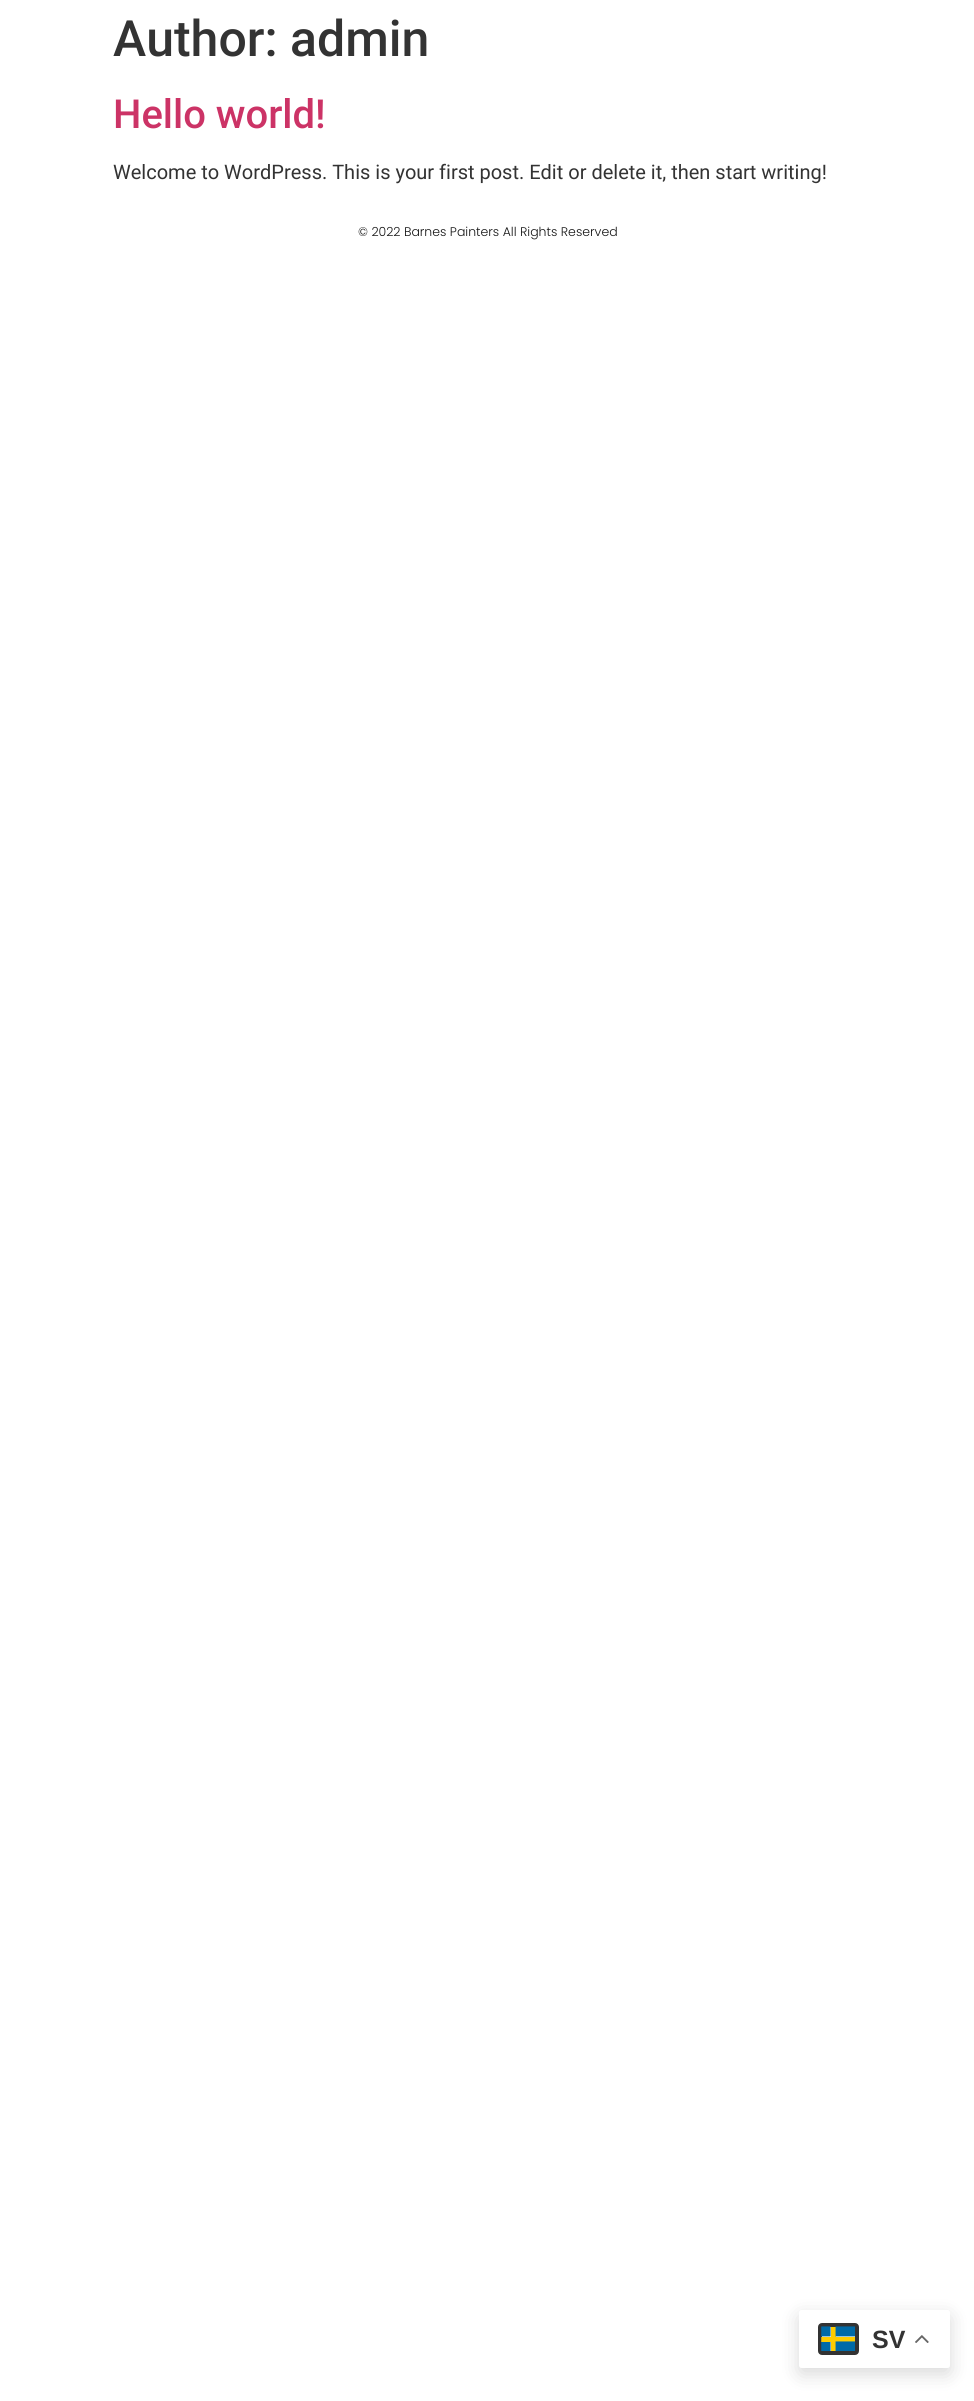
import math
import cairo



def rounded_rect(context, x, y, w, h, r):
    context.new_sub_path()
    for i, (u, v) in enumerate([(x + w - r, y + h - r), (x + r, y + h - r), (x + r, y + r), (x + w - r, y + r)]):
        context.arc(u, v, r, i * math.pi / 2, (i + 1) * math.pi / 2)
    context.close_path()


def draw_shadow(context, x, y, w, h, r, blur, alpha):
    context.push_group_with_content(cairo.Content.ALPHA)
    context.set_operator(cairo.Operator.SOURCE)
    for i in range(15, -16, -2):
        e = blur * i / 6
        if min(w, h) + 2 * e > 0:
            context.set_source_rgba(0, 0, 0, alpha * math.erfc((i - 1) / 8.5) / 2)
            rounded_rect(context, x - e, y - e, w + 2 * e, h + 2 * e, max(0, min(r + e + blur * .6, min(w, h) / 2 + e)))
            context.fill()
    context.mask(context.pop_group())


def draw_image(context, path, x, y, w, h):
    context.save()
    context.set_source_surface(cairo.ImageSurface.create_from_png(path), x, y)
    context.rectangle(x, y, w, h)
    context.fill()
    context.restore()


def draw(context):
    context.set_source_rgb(1, 1, 1)
    context.paint()
    context.set_source_rgb(0, 0, 0)
    draw_shadow(context, 799, 2316, 151, 58, 2.5, 9.5, 0.15)
    context.set_source_rgb(1, 1, 1)
    rounded_rect(context, 799, 2310, 151, 58, 2.5)
    context.fill()
    rounded_rect(context, 820, 2325, 37, 28, 2)
    context.set_source_rgb(51 / 255, 51 / 255, 51 / 255)
    context.set_line_width(4)
    context.stroke()
    draw_image(context, "images/1.png", 821, 2326, 34, 25)
    draw_image(context, "images/2.png", 915, 2335, 14, 8)
    context.select_font_face("Roboto Medium")
    context.set_font_size(50)
    context.move_to(113, 56)
    context.show_text("Author: admin")
    context.set_font_size(40)
    context.set_source_rgb(204 / 255, 51 / 255, 102 / 255)
    context.move_to(113, 128)
    context.show_text("Hello world!")
    context.select_font_face("Roboto")
    context.set_font_size(20)
    context.set_source_rgb(51 / 255, 51 / 255, 51 / 255)
    context.move_to(113, 179)
    context.show_text("Welcome to WordPress. This is your first post. Edit or delete it, then start writing!")
    context.select_font_face("Poppins Light")
    context.set_font_size(12.5)
    context.set_source_rgb(20 / 255, 20 / 255, 20 / 255)
    context.move_to(358, 236)
    context.show_text("© 2022 Barnes Painters All Rights Reserved")
    context.select_font_face("Liberation Sans", cairo.FontSlant.NORMAL, cairo.FontWeight.BOLD)
    context.set_font_size(25)
    context.set_source_rgb(51 / 255, 51 / 255, 51 / 255)
    context.move_to(872, 2348)
    context.show_text("SV")


surface = cairo.ImageSurface(cairo.Format.RGB24, 974, 2401)
context = cairo.Context(surface)
options = cairo.FontOptions()
options.set_hint_metrics(cairo.HintMetrics.OFF)
options.set_hint_style(cairo.HintStyle.NONE)
context.set_font_options(options)
context.set_miter_limit(4)
draw(context)
surface.write_to_png("out.png")
